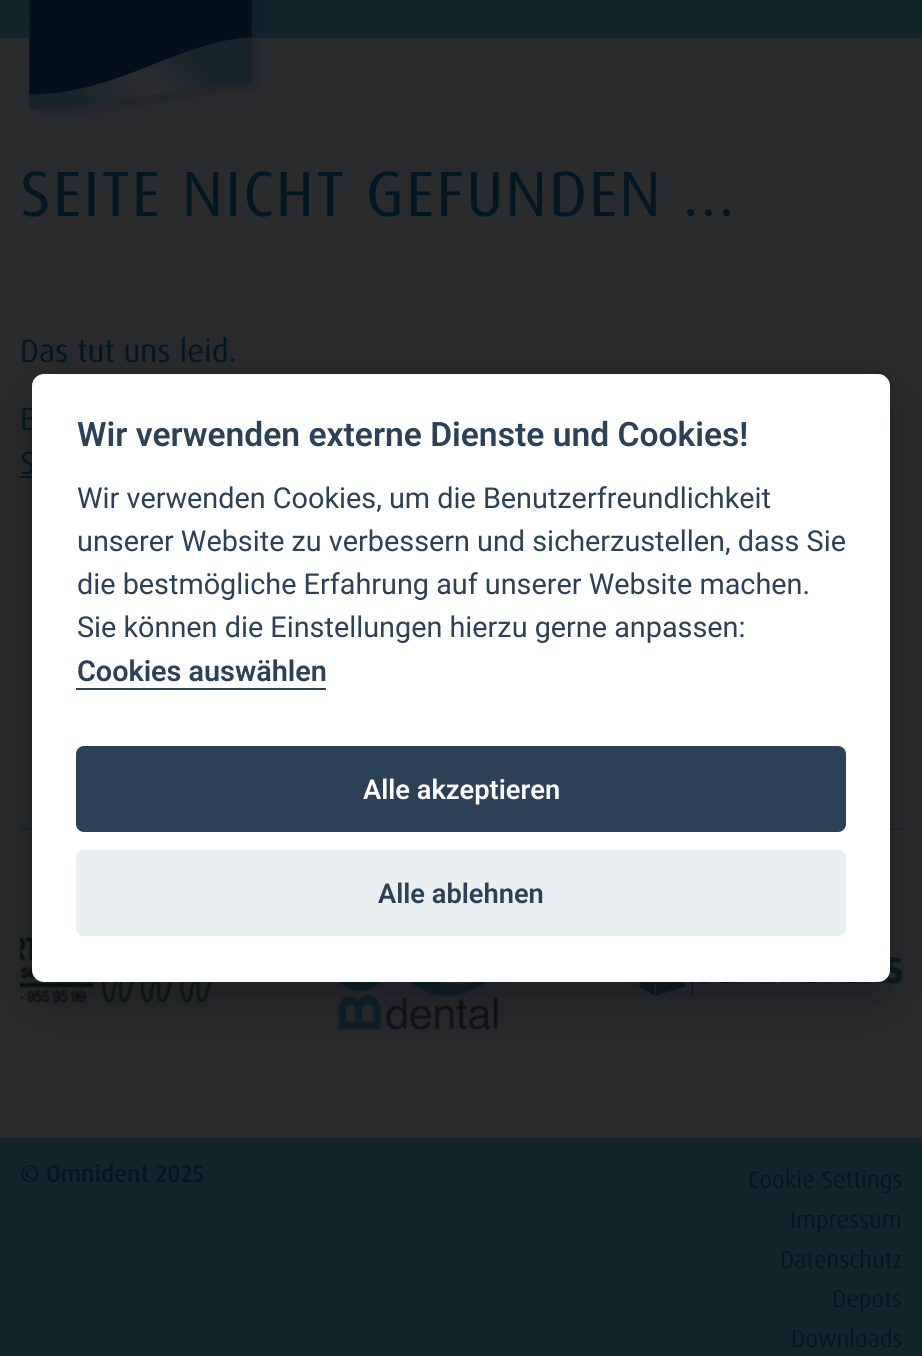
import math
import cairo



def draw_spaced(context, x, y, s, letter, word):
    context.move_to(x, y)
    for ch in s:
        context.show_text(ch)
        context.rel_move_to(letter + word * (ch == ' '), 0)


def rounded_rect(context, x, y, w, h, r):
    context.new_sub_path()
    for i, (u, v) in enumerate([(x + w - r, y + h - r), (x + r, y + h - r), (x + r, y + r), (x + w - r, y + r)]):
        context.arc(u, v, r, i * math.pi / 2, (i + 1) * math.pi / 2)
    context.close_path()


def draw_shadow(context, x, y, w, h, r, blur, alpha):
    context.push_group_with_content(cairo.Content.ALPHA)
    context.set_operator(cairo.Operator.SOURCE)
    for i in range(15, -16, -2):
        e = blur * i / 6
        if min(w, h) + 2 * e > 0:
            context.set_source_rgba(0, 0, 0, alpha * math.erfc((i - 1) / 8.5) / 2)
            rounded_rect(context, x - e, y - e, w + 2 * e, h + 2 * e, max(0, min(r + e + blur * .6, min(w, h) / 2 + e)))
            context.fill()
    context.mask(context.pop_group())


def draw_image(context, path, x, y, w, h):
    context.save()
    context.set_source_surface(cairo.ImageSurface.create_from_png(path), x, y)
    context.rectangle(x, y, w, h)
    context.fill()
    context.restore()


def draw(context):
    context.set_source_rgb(42 / 255, 43 / 255, 45 / 255)
    context.paint()
    context.set_source_rgb(20 / 255, 36 / 255, 43 / 255)
    context.rectangle(0, 0, 922, 38)
    context.fill()
    draw_image(context, "images/1.png", 29, 0, 239, 124)
    context.set_source_rgb(3 / 255, 24 / 255, 37 / 255)
    context.rectangle(20, 476, 12, 2)
    context.fill()
    context.set_source_rgb(29 / 255, 39 / 255, 44 / 255)
    context.rectangle(20, 828, 882, 2)
    context.fill()
    draw_image(context, "images/2.png", 20, 936, 197, 68)
    draw_image(context, "images/3.png", 638, 942, 264, 57)
    draw_image(context, "images/4.png", 336, 982, 169, 48)
    context.set_source_rgb(20 / 255, 36 / 255, 43 / 255)
    context.rectangle(0, 1138, 922, 218)
    context.fill()
    context.set_source_rgb(2 / 255, 2 / 255, 3 / 255)
    draw_shadow(context, 32, 394, 858, 608, 12, 30, 0.28)
    context.select_font_face("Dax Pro")
    context.set_font_size(64)
    context.set_source_rgb(3 / 255, 23 / 255, 35 / 255)
    draw_spaced(context, 20, 216, "SEITE NICHT GEFUNDEN ...", 2, 0)
    context.set_font_size(32)
    context.move_to(20, 362)
    context.show_text("Das tut uns leid.")
    context.move_to(20, 430)
    context.show_text("B")
    context.move_to(20, 474)
    context.show_text("S")
    context.select_font_face("Dax Pro Medium")
    context.set_font_size(24)
    context.move_to(20, 1182)
    context.show_text("© Omnident 2025")
    context.select_font_face("Dax Pro")
    context.move_to(748, 1188)
    context.show_text("Cookie Settings")
    context.move_to(790, 1228)
    context.show_text("Impressum")
    context.move_to(780, 1268)
    context.show_text("Datenschutz")
    context.move_to(832, 1307)
    context.show_text("Depots")
    context.move_to(791, 1347)
    context.show_text("Downloads")
    context.set_source_rgb(1, 1, 1)
    rounded_rect(context, 32, 374, 858, 608, 12)
    context.fill()
    context.select_font_face("Roboto SemiBold")
    context.set_font_size(33.6)
    context.set_source_rgb(45 / 255, 65 / 255, 86 / 255)
    context.move_to(77, 446)
    context.show_text("Wir verwenden externe Dienste und Cookies!")
    context.select_font_face("Roboto")
    context.set_font_size(28.8)
    context.move_to(77, 508)
    context.show_text("Wir verwenden Cookies, um die Benutzerfreundlichkeit")
    context.move_to(77, 551)
    context.show_text("unserer Website zu verbessern und sicherzustellen, dass Sie")
    context.move_to(77, 594)
    context.show_text("die bestmögliche Erfahrung auf unserer Website machen.")
    context.move_to(77, 637)
    context.show_text("Sie können die Einstellungen hierzu gerne anpassen:")
    context.select_font_face("Roboto SemiBold")
    context.move_to(77, 681)
    context.show_text("Cookies auswählen")
    context.rectangle(76, 688, 250, 2)
    context.fill()
    rounded_rect(context, 76, 746, 770, 86, 8)
    context.fill()
    context.set_font_size(27.25)
    context.set_source_rgb(1, 1, 1)
    context.move_to(363, 799)
    context.show_text("Alle akzeptieren")
    context.set_source_rgb(234 / 255, 239 / 255, 242 / 255)
    rounded_rect(context, 76, 850, 770, 86, 8)
    context.fill()
    context.set_source_rgb(45 / 255, 65 / 255, 86 / 255)
    context.move_to(378, 903)
    context.show_text("Alle ablehnen")


surface = cairo.ImageSurface(cairo.Format.RGB24, 922, 1356)
context = cairo.Context(surface)
options = cairo.FontOptions()
options.set_hint_metrics(cairo.HintMetrics.OFF)
options.set_hint_style(cairo.HintStyle.NONE)
context.set_font_options(options)
context.set_miter_limit(4)
draw(context)
surface.write_to_png("out.png")
